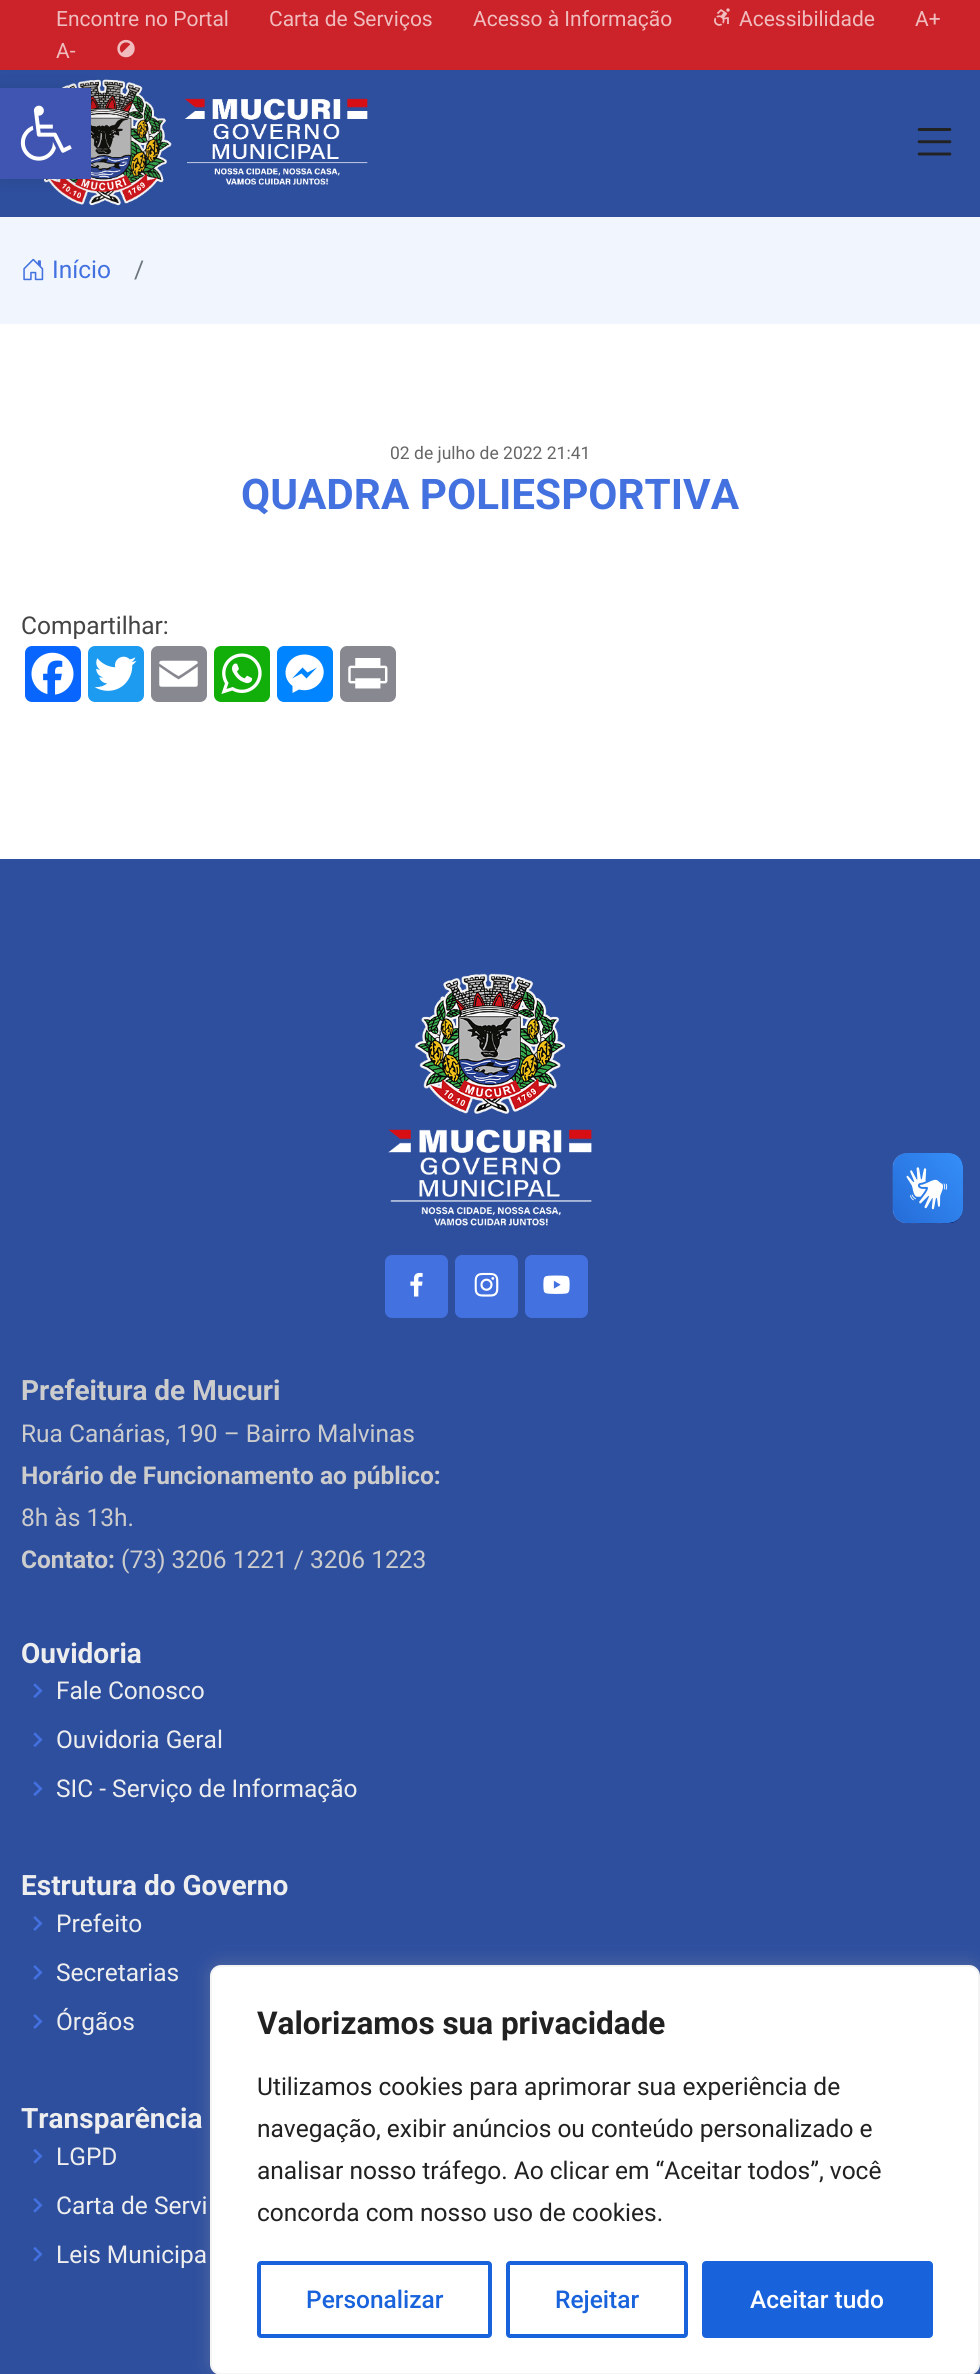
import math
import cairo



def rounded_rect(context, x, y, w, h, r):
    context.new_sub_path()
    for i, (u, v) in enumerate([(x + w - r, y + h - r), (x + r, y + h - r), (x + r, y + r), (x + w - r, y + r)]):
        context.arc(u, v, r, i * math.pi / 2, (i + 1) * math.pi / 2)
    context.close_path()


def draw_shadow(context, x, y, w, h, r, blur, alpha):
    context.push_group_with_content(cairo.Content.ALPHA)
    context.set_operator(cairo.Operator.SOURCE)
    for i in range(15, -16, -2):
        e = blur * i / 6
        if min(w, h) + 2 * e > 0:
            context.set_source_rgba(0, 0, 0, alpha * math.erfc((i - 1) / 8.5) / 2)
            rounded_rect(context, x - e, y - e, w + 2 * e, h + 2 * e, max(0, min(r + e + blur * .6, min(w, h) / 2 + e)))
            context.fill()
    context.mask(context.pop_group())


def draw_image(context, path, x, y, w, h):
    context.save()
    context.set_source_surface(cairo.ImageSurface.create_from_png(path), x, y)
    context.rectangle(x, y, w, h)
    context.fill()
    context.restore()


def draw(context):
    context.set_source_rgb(1, 1, 1)
    context.paint()
    context.set_source_rgb(204 / 255, 34 / 255, 41 / 255)
    context.rectangle(0, 0, 980, 70)
    context.fill()
    draw_image(context, "images/1.png", 714, 8, 16, 18)
    draw_image(context, "images/2.png", 117, 39, 18, 19)
    context.set_source_rgb(46 / 255, 79 / 255, 158 / 255)
    context.rectangle(0, 70, 980, 147)
    context.fill()
    draw_image(context, "images/4.png", 44, 79, 324, 127)
    context.set_source_rgb(0, 0, 0)
    draw_shadow(context, 0, 88, 91, 91, 0, 9, 0.1)
    context.set_source_rgb(64 / 255, 84 / 255, 178 / 255)
    context.rectangle(0, 88, 91, 91)
    context.fill()
    draw_image(context, "images/3.png", 20, 105, 52, 56)
    draw_image(context, "images/5.png", 917, 128, 35, 28)
    context.set_source_rgb(241 / 255, 246 / 255, 254 / 255)
    context.rectangle(0, 217, 980, 107)
    context.fill()
    draw_image(context, "images/6.png", 23, 258, 21, 23)
    context.set_source_rgb(8 / 255, 102 / 255, 1)
    rounded_rect(context, 25, 646, 56, 56, 7)
    context.fill()
    draw_image(context, "images/7.png", 31, 652, 43, 43)
    context.set_source_rgb(29 / 255, 155 / 255, 240 / 255)
    rounded_rect(context, 88, 646, 56, 56, 7)
    context.fill()
    draw_image(context, "images/8.png", 94, 656, 43, 35)
    context.set_source_rgb(136 / 255, 137 / 255, 144 / 255)
    rounded_rect(context, 151, 646, 56, 56, 7)
    context.fill()
    draw_image(context, "images/9.png", 159, 660, 39, 27)
    context.set_source_rgb(18 / 255, 175 / 255, 10 / 255)
    rounded_rect(context, 214, 646, 56, 56, 7)
    context.fill()
    draw_image(context, "images/10.png", 221, 653, 41, 41)
    context.set_source_rgb(0, 132 / 255, 1)
    rounded_rect(context, 277, 646, 56, 56, 7)
    context.fill()
    context.set_source_rgb(1, 1, 1)
    context.new_path()
    context.move_to(304.5, 654.5)
    context.curve_to(287, 654.5, 278.5, 675.5, 292.5, 686)
    context.line_to(292.5, 693)
    context.line_to(299, 689.5)
    context.curve_to(317, 694.5, 332.5, 673.5, 318, 659.5)
    context.curve_to(314.5, 656.5, 309.5, 654.5, 304.5, 654.5)
    context.move_to(306.5, 678.5)
    context.line_to(301.5, 673.5)
    context.line_to(292, 678.5)
    context.line_to(302.5, 667.5)
    context.line_to(307.5, 672.5)
    context.line_to(317, 667.5)
    context.close_path()
    context.fill()
    context.set_source_rgb(136 / 255, 137 / 255, 144 / 255)
    rounded_rect(context, 340, 646, 56, 56, 7)
    context.fill()
    draw_image(context, "images/11.png", 348, 658, 40, 31)
    context.set_source_rgb(46 / 255, 79 / 255, 158 / 255)
    context.rectangle(0, 859, 980, 1515)
    context.fill()
    draw_image(context, "images/12.png", 892, 1153, 71, 71)
    draw_image(context, "images/13.png", 893, 1153, 70, 70)
    draw_image(context, "images/14.png", 388, 973, 204, 253)
    context.set_source_rgb(67 / 255, 113 / 255, 224 / 255)
    rounded_rect(context, 385, 1255, 63, 63, 7)
    context.fill()
    draw_image(context, "images/15.png", 410, 1272, 13, 25)
    rounded_rect(context, 455, 1255, 63, 63, 7)
    context.fill()
    draw_image(context, "images/16.png", 474, 1272, 25, 25)
    rounded_rect(context, 525, 1255, 63, 63, 7)
    context.fill()
    draw_image(context, "images/17.png", 543, 1275, 27, 19)
    draw_image(context, "images/18.png", 33, 1683, 10, 15)
    draw_image(context, "images/18.png", 33, 1732, 10, 15)
    draw_image(context, "images/18.png", 33, 1781, 10, 15)
    draw_image(context, "images/19.png", 33, 1916, 10, 15)
    draw_image(context, "images/19.png", 33, 1965, 10, 15)
    draw_image(context, "images/19.png", 33, 2014, 10, 15)
    draw_image(context, "images/20.png", 33, 2149, 10, 15)
    draw_image(context, "images/20.png", 33, 2198, 10, 15)
    draw_image(context, "images/20.png", 33, 2247, 10, 15)
    context.set_source_rgb(172 / 255, 171 / 255, 171 / 255)
    draw_shadow(context, 210, 1964, 770, 409, 11, 9, 0.3)
    context.set_source_rgb(1, 1, 1)
    rounded_rect(context, 211, 1966, 768, 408, 10)
    context.fill_preserve()
    context.set_source_rgb(244 / 255, 244 / 255, 244 / 255)
    context.stroke()
    rounded_rect(context, 259, 2263, 231, 73, 2)
    context.set_source_rgb(24 / 255, 99 / 255, 220 / 255)
    context.set_line_width(4)
    context.stroke()
    rounded_rect(context, 508, 2263, 178, 73, 2)
    context.stroke()
    rounded_rect(context, 704, 2263, 227, 73, 2)
    context.fill_preserve()
    context.stroke()
    context.select_font_face("Roboto")
    context.set_font_size(21)
    context.set_source_rgb(240 / 255, 189 / 255, 191 / 255)
    context.move_to(56, 26)
    context.show_text("Encontre no Portal")
    context.move_to(269, 26)
    context.show_text("Carta de Serviços")
    context.move_to(473, 26)
    context.show_text("Acesso à Informação")
    context.move_to(739, 26)
    context.show_text("Acessibilidade")
    context.move_to(915, 26)
    context.show_text("A+")
    context.move_to(56, 58)
    context.show_text("A-")
    context.set_font_size(24.5)
    context.set_source_rgb(67 / 255, 113 / 255, 224 / 255)
    context.move_to(52, 278)
    context.show_text("Início")
    context.set_source_rgb(108 / 255, 117 / 255, 125 / 255)
    context.move_to(134, 278)
    context.show_text("/")
    context.set_font_size(17.5)
    context.set_source_rgb(102 / 255, 102 / 255, 102 / 255)
    context.move_to(390, 459)
    context.show_text("02 de julho de 2022 21:41")
    context.select_font_face("Roboto", cairo.FontSlant.NORMAL, cairo.FontWeight.BOLD)
    context.set_font_size(42.25)
    context.set_source_rgb(67 / 255, 113 / 255, 224 / 255)
    context.move_to(241, 509)
    context.show_text("QUADRA POLIESPORTIVA")
    context.select_font_face("Roboto")
    context.set_font_size(24.5)
    context.set_source_rgb(68 / 255, 68 / 255, 68 / 255)
    context.move_to(21, 634)
    context.show_text("Compartilhar:")
    context.select_font_face("Roboto", cairo.FontSlant.NORMAL, cairo.FontWeight.BOLD)
    context.set_font_size(28)
    context.set_source_rgb(204 / 255, 204 / 255, 204 / 255)
    context.move_to(21, 1400)
    context.show_text("Prefeitura de Mucuri")
    context.select_font_face("Roboto")
    context.set_font_size(24.5)
    context.move_to(21, 1442)
    context.show_text("Rua Canárias, 190 – Bairro Malvinas")
    context.select_font_face("Roboto", cairo.FontSlant.NORMAL, cairo.FontWeight.BOLD)
    context.move_to(21, 1484)
    context.show_text("Horário de Funcionamento ao público:")
    context.select_font_face("Roboto")
    context.move_to(21, 1526)
    context.show_text("8h às 13h.")
    context.select_font_face("Roboto", cairo.FontSlant.NORMAL, cairo.FontWeight.BOLD)
    context.move_to(21, 1568)
    context.show_text("Contato:")
    context.select_font_face("Roboto")
    context.move_to(121, 1568)
    context.show_text("(73) 3206 1221 / 3206 1223")
    context.select_font_face("Roboto", cairo.FontSlant.NORMAL, cairo.FontWeight.BOLD)
    context.set_font_size(28)
    context.set_source_rgb(238 / 255, 238 / 255, 238 / 255)
    context.move_to(21, 1663)
    context.show_text("Ouvidoria")
    context.select_font_face("Roboto")
    context.set_font_size(24.5)
    context.move_to(56, 1699)
    context.show_text("Fale Conosco")
    context.move_to(56, 1748)
    context.show_text("Ouvidoria Geral")
    context.move_to(56, 1797)
    context.show_text("SIC - Serviço de Informação")
    context.select_font_face("Roboto", cairo.FontSlant.NORMAL, cairo.FontWeight.BOLD)
    context.set_font_size(28)
    context.move_to(21, 1895)
    context.show_text("Estrutura do Governo")
    context.select_font_face("Roboto")
    context.set_font_size(24.5)
    context.move_to(56, 1932)
    context.show_text("Prefeito")
    context.move_to(56, 1981)
    context.show_text("Secretarias")
    context.move_to(56, 2030)
    context.show_text("Órgãos")
    context.select_font_face("Roboto", cairo.FontSlant.NORMAL, cairo.FontWeight.BOLD)
    context.set_font_size(28)
    context.move_to(21, 2128)
    context.show_text("Transparência")
    context.select_font_face("Roboto")
    context.set_font_size(24.5)
    context.move_to(56, 2165)
    context.show_text("LGPD")
    context.move_to(56, 2214)
    context.show_text("Carta de Servi")
    context.move_to(56, 2263)
    context.show_text("Leis Municipa")
    context.select_font_face("Roboto", cairo.FontSlant.NORMAL, cairo.FontWeight.BOLD)
    context.set_font_size(31.5)
    context.set_source_rgb(33 / 255, 33 / 255, 33 / 255)
    context.move_to(257, 2034)
    context.show_text("Valorizamos sua privacidade")
    context.select_font_face("Roboto")
    context.set_font_size(24.5)
    context.move_to(257, 2095)
    context.show_text("Utilizamos cookies para aprimorar sua experiência de")
    context.move_to(257, 2137)
    context.show_text("navegação, exibir anúncios ou conteúdo personalizado e")
    context.move_to(257, 2179)
    context.show_text("analisar nosso tráfego. Ao clicar em “Aceitar todos”, você")
    context.move_to(257, 2221)
    context.show_text("concorda com nosso uso de cookies.")
    context.select_font_face("Roboto Medium")
    context.set_source_rgb(24 / 255, 99 / 255, 220 / 255)
    context.move_to(306, 2308)
    context.show_text("Personalizar")
    context.move_to(555, 2308)
    context.show_text("Rejeitar")
    context.set_source_rgb(1, 1, 1)
    context.move_to(750, 2308)
    context.show_text("Aceitar tudo")


surface = cairo.ImageSurface(cairo.Format.RGB24, 980, 2374)
context = cairo.Context(surface)
options = cairo.FontOptions()
options.set_hint_metrics(cairo.HintMetrics.OFF)
options.set_hint_style(cairo.HintStyle.NONE)
context.set_font_options(options)
context.set_miter_limit(4)
draw(context)
surface.write_to_png("out.png")
